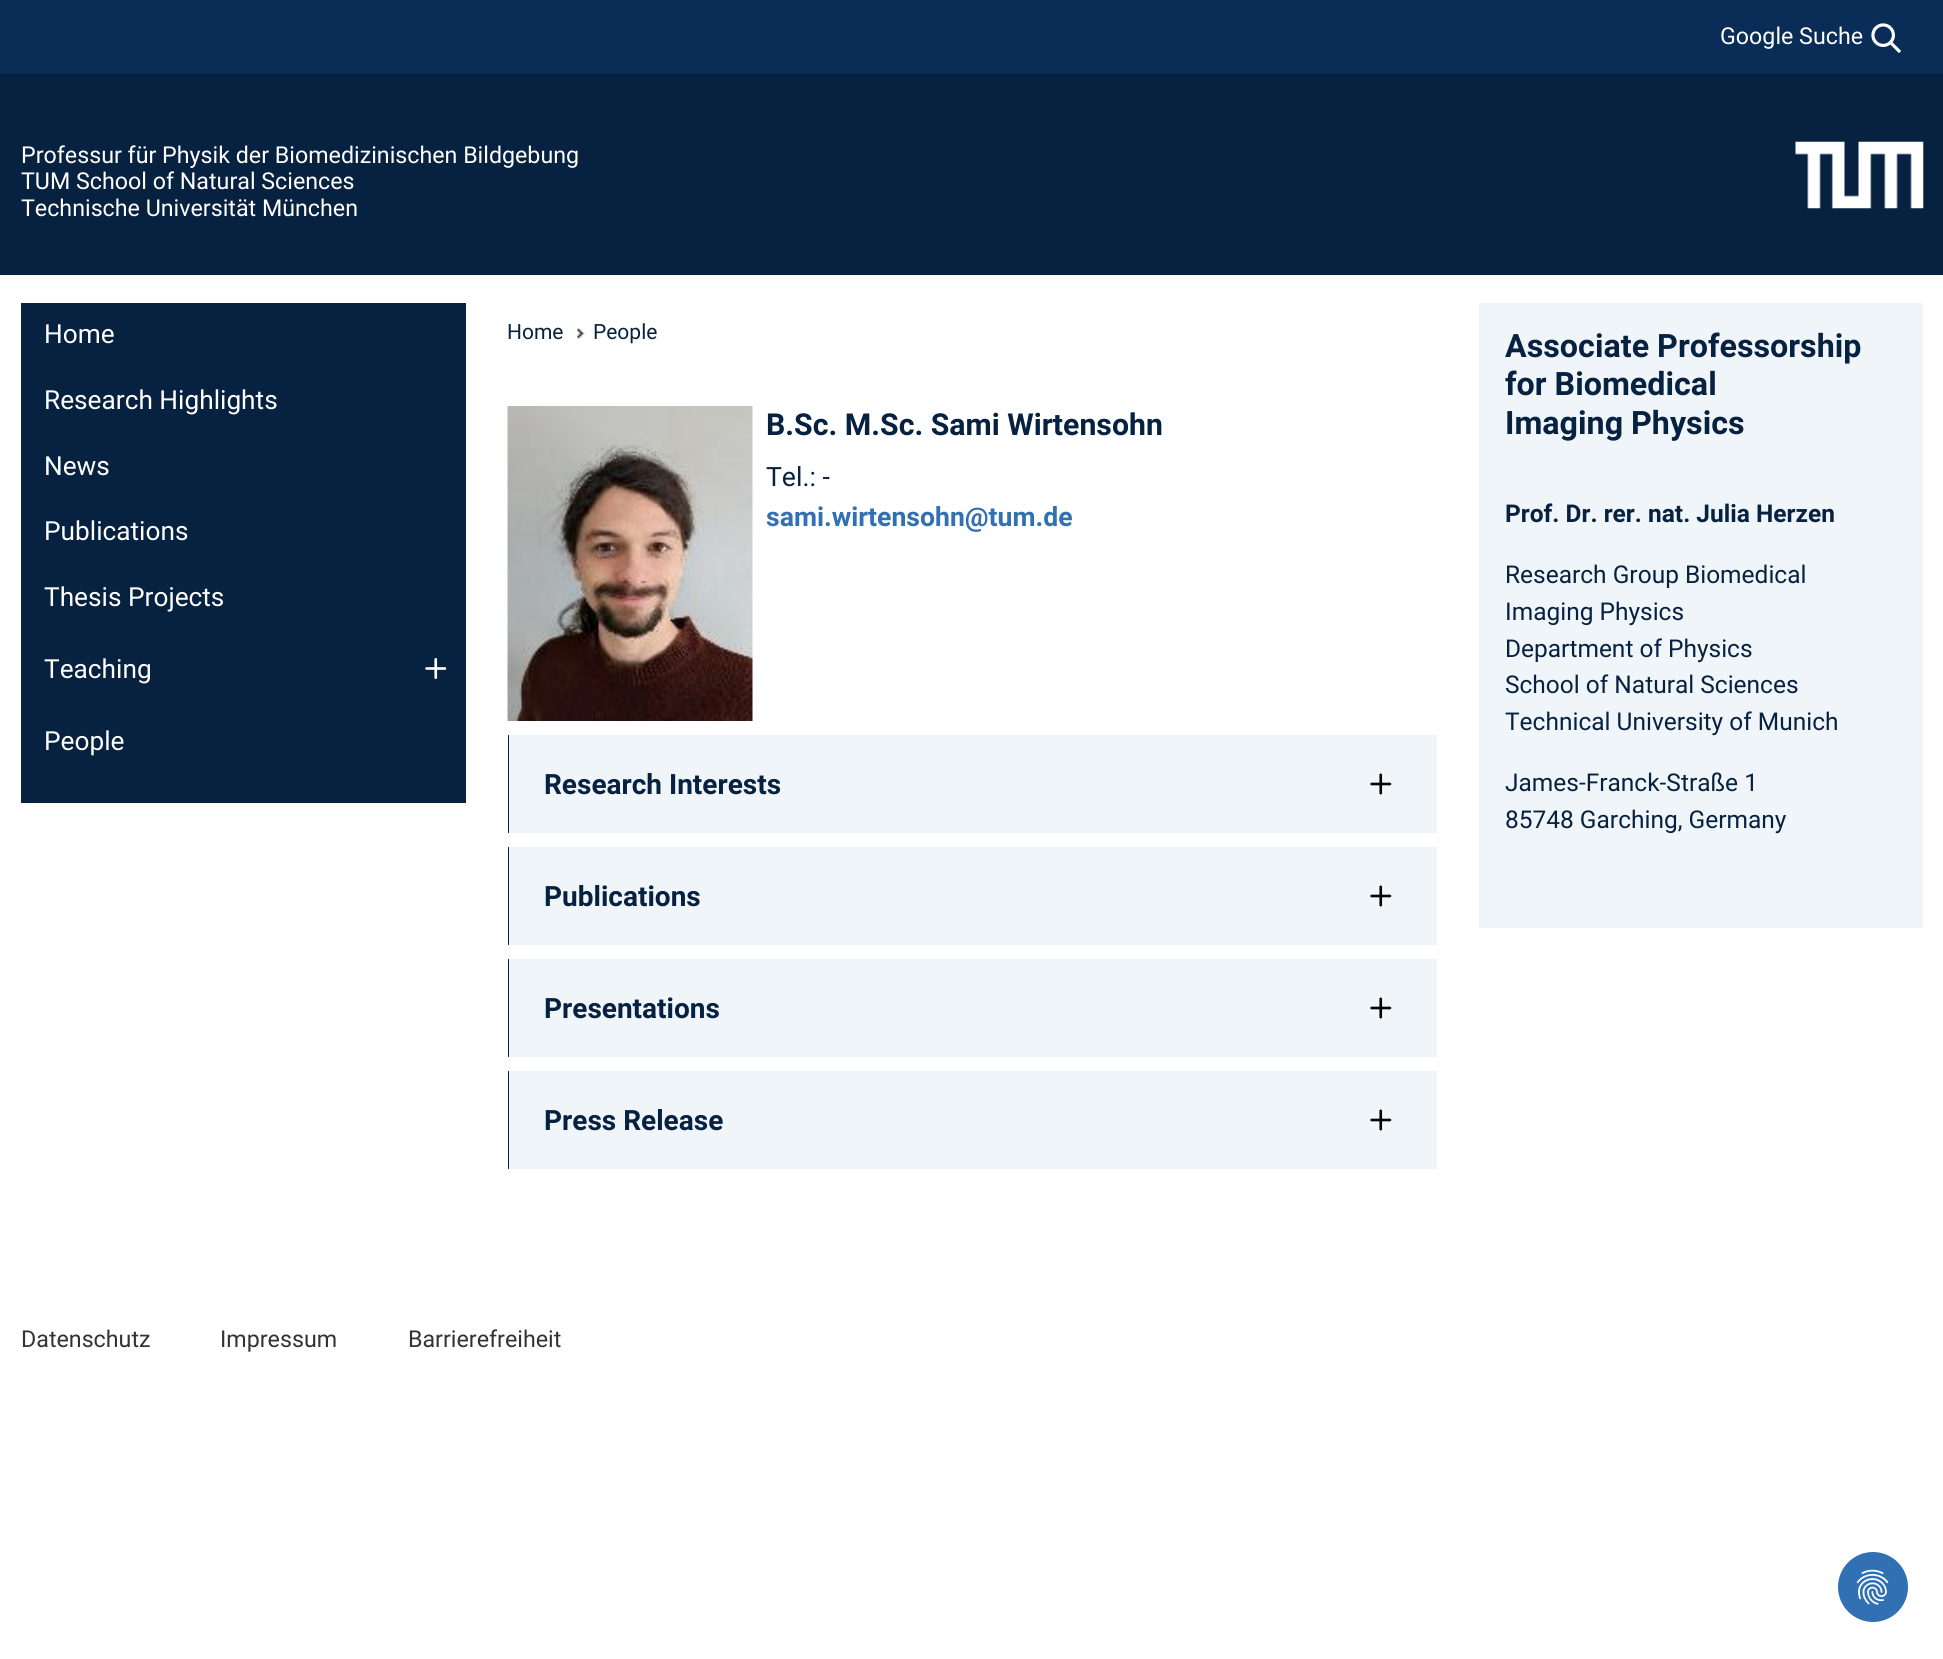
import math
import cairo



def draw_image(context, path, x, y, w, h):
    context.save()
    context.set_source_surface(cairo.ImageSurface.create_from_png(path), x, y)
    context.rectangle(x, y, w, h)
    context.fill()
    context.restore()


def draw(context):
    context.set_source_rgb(1, 1, 1)
    context.paint()
    context.set_source_rgb(10 / 255, 45 / 255, 87 / 255)
    context.rectangle(0, 0, 1943, 74)
    context.fill()
    draw_image(context, "images/1.png", 1871, 23, 30, 30)
    context.set_source_rgb(7 / 255, 33 / 255, 64 / 255)
    context.rectangle(0, 74, 1943, 201)
    context.fill()
    draw_image(context, "images/2.png", 1795, 141, 129, 68)
    context.rectangle(21, 303, 445, 500)
    context.fill()
    draw_image(context, "images/3.png", 425, 658, 22, 21)
    draw_image(context, "images/4.png", 577, 328, 8, 11)
    draw_image(context, "images/5.png", 507, 406, 246, 315)
    context.rectangle(508, 735, 1, 98)
    context.fill()
    context.set_source_rgb(240 / 255, 245 / 255, 250 / 255)
    context.rectangle(509, 735, 928, 98)
    context.fill()
    draw_image(context, "images/6.png", 1370, 773, 22, 22)
    context.set_source_rgb(7 / 255, 33 / 255, 64 / 255)
    context.rectangle(508, 847, 1, 98)
    context.fill()
    context.set_source_rgb(240 / 255, 245 / 255, 250 / 255)
    context.rectangle(509, 847, 928, 98)
    context.fill()
    draw_image(context, "images/6.png", 1370, 885, 22, 22)
    context.set_source_rgb(7 / 255, 33 / 255, 64 / 255)
    context.rectangle(508, 959, 1, 98)
    context.fill()
    context.set_source_rgb(240 / 255, 245 / 255, 250 / 255)
    context.rectangle(509, 959, 928, 98)
    context.fill()
    draw_image(context, "images/6.png", 1370, 997, 22, 22)
    context.set_source_rgb(7 / 255, 33 / 255, 64 / 255)
    context.rectangle(508, 1071, 1, 98)
    context.fill()
    context.set_source_rgb(240 / 255, 245 / 255, 250 / 255)
    context.rectangle(509, 1071, 928, 98)
    context.fill()
    draw_image(context, "images/6.png", 1370, 1109, 22, 22)
    context.rectangle(1479, 303, 444, 625)
    context.fill()
    context.set_source_rgb(48 / 255, 112 / 255, 179 / 255)
    context.arc(1873, 1587, 35, 0, 2 * math.pi)
    context.fill()
    draw_image(context, "images/7.png", 1856, 1569, 33, 36)
    context.select_font_face("Roboto")
    context.set_font_size(23.25)
    context.set_source_rgb(1, 1, 1)
    context.move_to(1720, 44)
    context.show_text("Google Suche")
    context.move_to(21, 163)
    context.show_text("Professur für Physik der Biomedizinischen Bildgebung")
    context.move_to(21, 189)
    context.show_text("TUM School of Natural Sciences")
    context.move_to(21, 216)
    context.show_text("Technische Universität München")
    context.set_font_size(26.25)
    context.move_to(44, 343)
    context.show_text("Home")
    context.move_to(44, 409)
    context.show_text("Research Highlights")
    context.move_to(44, 475)
    context.show_text("News")
    context.move_to(44, 540)
    context.show_text("Publications")
    context.move_to(44, 606)
    context.show_text("Thesis Projects")
    context.move_to(44, 678)
    context.show_text("Teaching")
    context.move_to(44, 750)
    context.show_text("People")
    context.set_font_size(21)
    context.set_source_rgb(7 / 255, 33 / 255, 64 / 255)
    context.move_to(507, 339)
    context.show_text("Home")
    context.move_to(593, 339)
    context.show_text("People")
    context.select_font_face("Roboto", cairo.FontSlant.NORMAL, cairo.FontWeight.BOLD)
    context.set_font_size(30.25)
    context.move_to(766, 435)
    context.show_text("B.Sc. M.Sc. Sami Wirtensohn")
    context.select_font_face("Roboto")
    context.set_font_size(26.6)
    context.move_to(766, 486)
    context.show_text("Tel.: -")
    context.select_font_face("Roboto", cairo.FontSlant.NORMAL, cairo.FontWeight.BOLD)
    context.set_source_rgb(48 / 255, 112 / 255, 179 / 255)
    context.move_to(766, 526)
    context.show_text("sami.wirtensohn@tum.de")
    context.set_font_size(28)
    context.set_source_rgb(7 / 255, 33 / 255, 64 / 255)
    context.move_to(544, 794)
    context.show_text("Research Interests")
    context.move_to(544, 906)
    context.show_text("Publications")
    context.move_to(544, 1018)
    context.show_text("Presentations")
    context.move_to(544, 1130)
    context.show_text("Press Release")
    context.set_font_size(32.25)
    context.move_to(1505, 357)
    context.show_text("Associate Professorship")
    context.move_to(1505, 395)
    context.show_text("for Biomedical")
    context.move_to(1505, 434)
    context.show_text("Imaging Physics")
    context.set_font_size(24.5)
    context.move_to(1505, 522)
    context.show_text("Prof. Dr. rer. nat. Julia Herzen")
    context.select_font_face("Roboto")
    context.move_to(1505, 583)
    context.show_text("Research Group Biomedical")
    context.move_to(1505, 620)
    context.show_text("Imaging Physics")
    context.move_to(1505, 657)
    context.show_text("Department of Physics")
    context.move_to(1505, 693)
    context.show_text("School of Natural Sciences")
    context.move_to(1505, 730)
    context.show_text("Technical University of Munich")
    context.move_to(1505, 791)
    context.show_text("James-Franck-Straße 1")
    context.move_to(1505, 828)
    context.show_text("85748 Garching, Germany")
    context.set_font_size(23.25)
    context.set_source_rgb(51 / 255, 51 / 255, 51 / 255)
    context.move_to(21, 1347)
    context.show_text("Datenschutz")
    context.move_to(220, 1347)
    context.show_text("Impressum")
    context.move_to(408, 1347)
    context.show_text("Barrierefreiheit")


surface = cairo.ImageSurface(cairo.Format.RGB24, 1943, 1659)
context = cairo.Context(surface)
options = cairo.FontOptions()
options.set_hint_metrics(cairo.HintMetrics.OFF)
options.set_hint_style(cairo.HintStyle.NONE)
context.set_font_options(options)
context.set_miter_limit(4)
draw(context)
surface.write_to_png("out.png")
